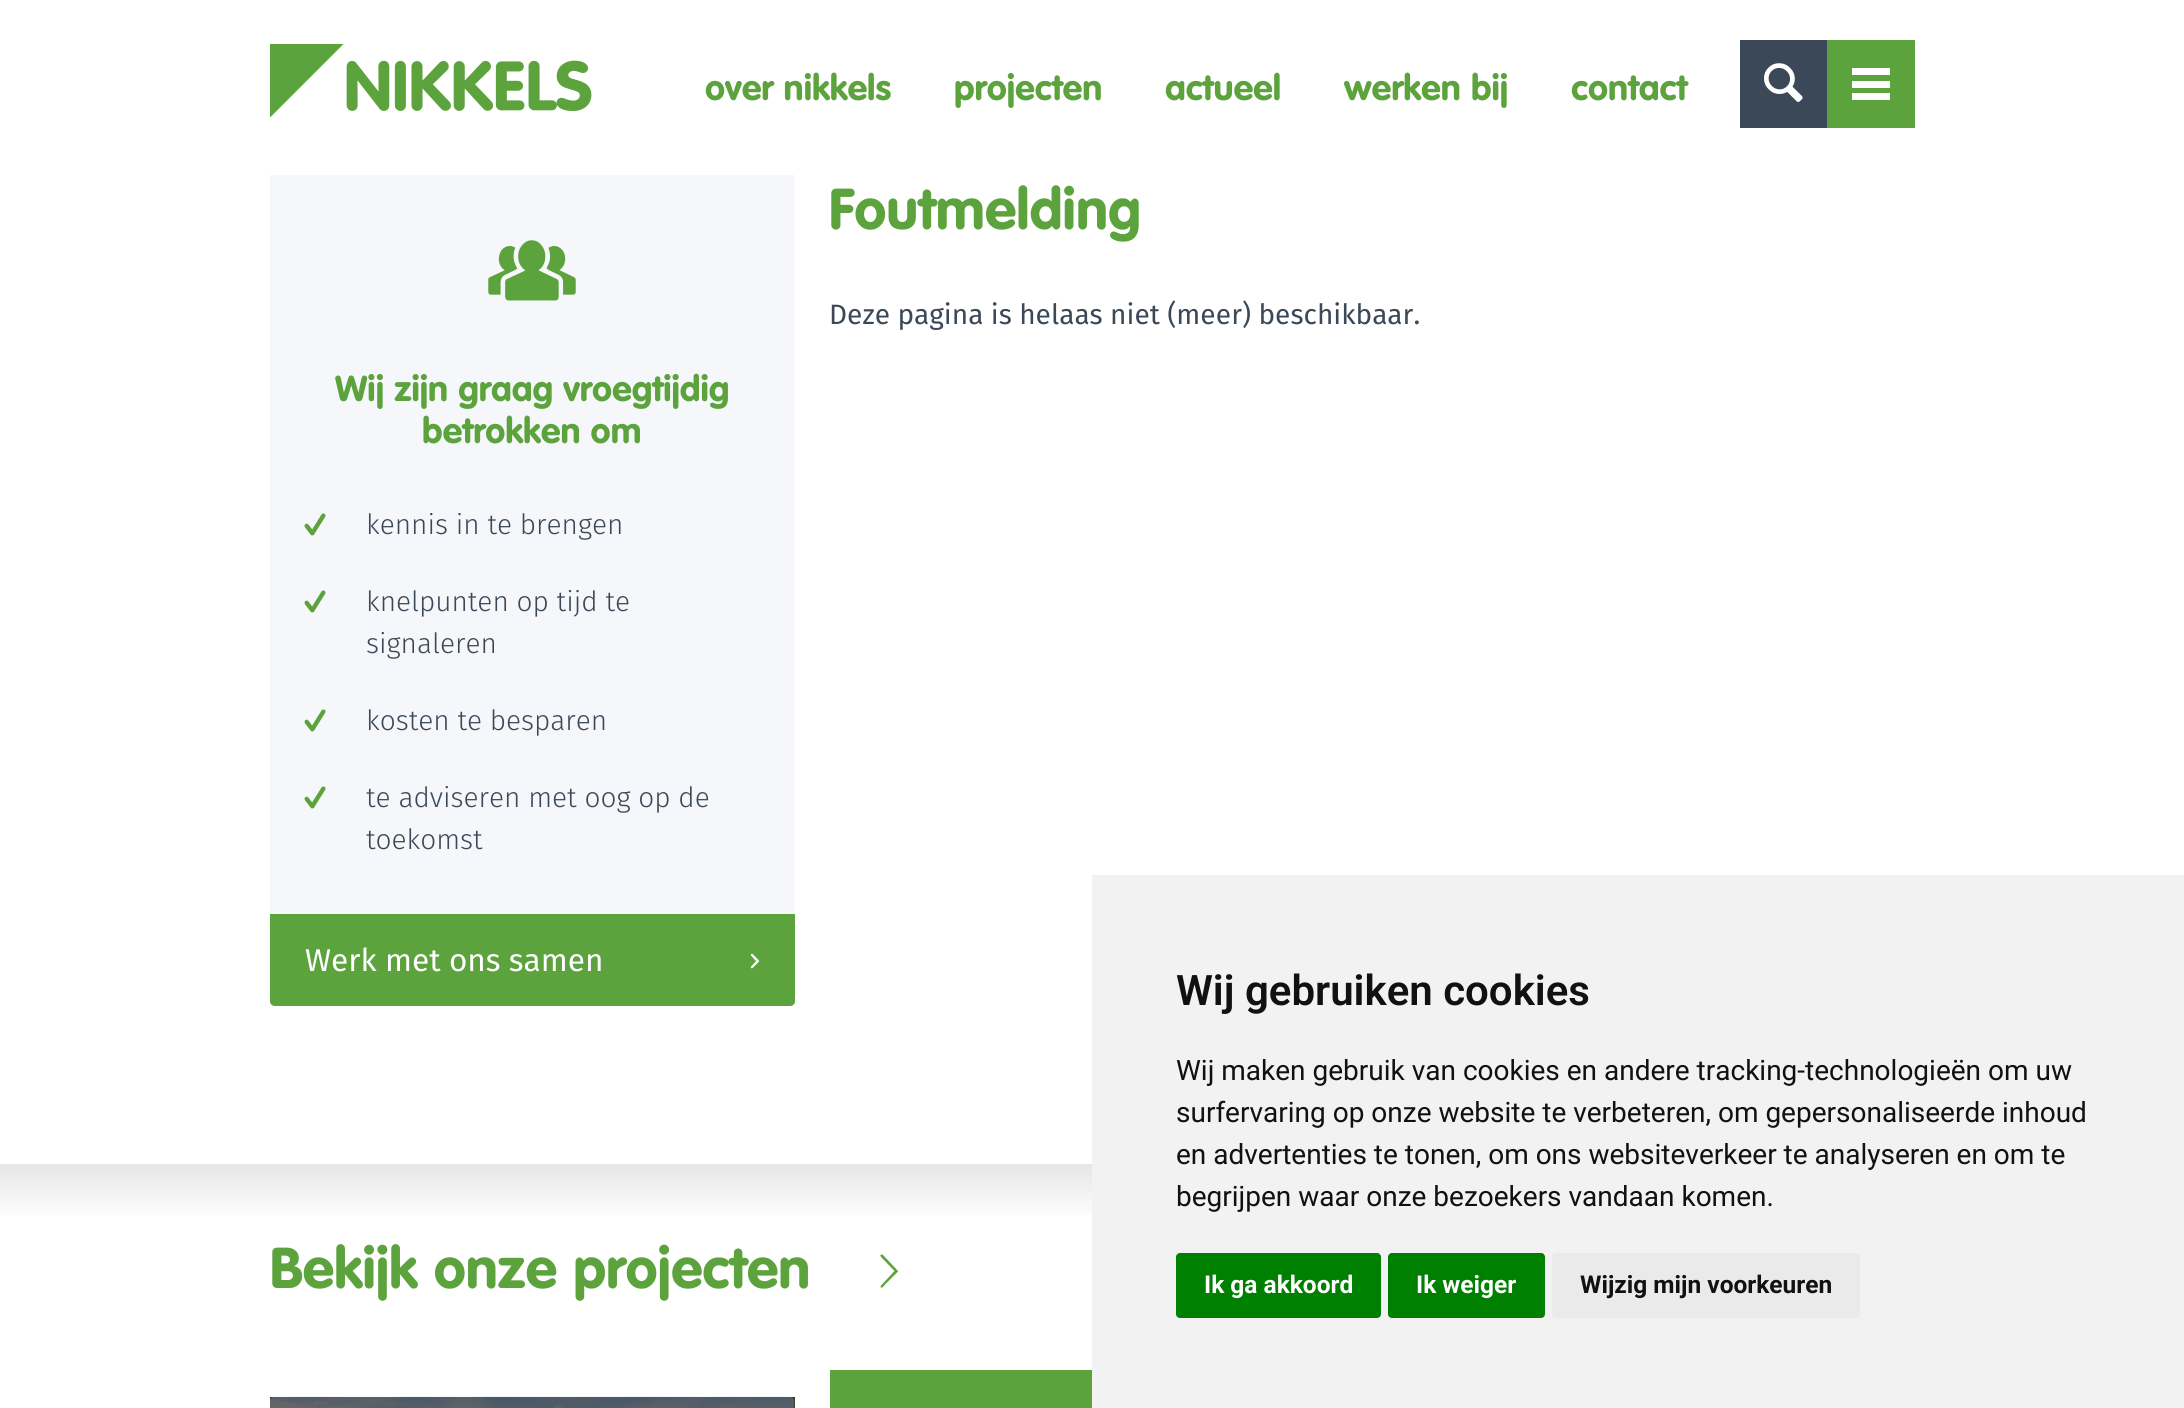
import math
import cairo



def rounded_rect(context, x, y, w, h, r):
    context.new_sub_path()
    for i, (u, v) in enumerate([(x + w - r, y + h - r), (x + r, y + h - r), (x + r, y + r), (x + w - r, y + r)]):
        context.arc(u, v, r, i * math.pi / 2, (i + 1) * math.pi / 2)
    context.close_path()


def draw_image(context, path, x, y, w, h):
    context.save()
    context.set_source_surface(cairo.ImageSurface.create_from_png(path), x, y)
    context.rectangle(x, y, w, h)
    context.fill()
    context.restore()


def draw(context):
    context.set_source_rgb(1, 1, 1)
    context.paint()
    draw_image(context, "images/1.png", 270, 44, 322, 73)
    context.set_source_rgb(59 / 255, 72 / 255, 88 / 255)
    context.rectangle(1740, 40, 87, 88)
    context.fill()
    draw_image(context, "images/2.png", 1764, 63, 39, 39)
    context.set_source_rgb(92 / 255, 163 / 255, 61 / 255)
    context.rectangle(1827, 40, 88, 88)
    context.fill()
    context.set_source_rgb(1, 1, 1)
    context.rectangle(1852, 81, 38, 7)
    context.fill()
    context.rectangle(1852, 68, 38, 7)
    context.fill()
    context.rectangle(1852, 93, 38, 7)
    context.fill()
    context.set_source_rgb(246 / 255, 247 / 255, 250 / 255)
    context.rectangle(270, 175, 525, 739)
    context.fill()
    draw_image(context, "images/3.png", 488, 240, 88, 61)
    draw_image(context, "images/4.png", 304, 513, 22, 23)
    draw_image(context, "images/4.png", 304, 590, 22, 23)
    draw_image(context, "images/4.png", 304, 709, 22, 23)
    draw_image(context, "images/4.png", 304, 786, 22, 23)
    context.set_source_rgb(92 / 255, 163 / 255, 61 / 255)
    context.new_path()
    context.move_to(270, 914)
    context.line_to(795, 914)
    context.line_to(795, 1001)
    context.curve_to(795, 1004, 793, 1006, 790, 1006)
    context.line_to(275, 1006)
    context.curve_to(272, 1006, 270, 1004, 270, 1001)
    context.close_path()
    context.fill()
    draw_image(context, "images/5.png", 750, 953, 10, 16)
    gradient = cairo.LinearGradient(1092, 1164, 1092, 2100)
    gradient.add_color_stop_rgba(0, 230 / 255, 230 / 255, 230 / 255, 1)
    gradient.add_color_stop_rgba(0.06, 1, 1, 1, 1)
    gradient.add_color_stop_rgba(0.99, 1, 1, 1, 1)
    context.set_source(gradient)
    context.rectangle(0, 1164, 1092, 51)
    context.fill()
    context.set_source_rgb(92 / 255, 163 / 255, 61 / 255)
    context.new_path()
    context.move_to(881, 1285.5)
    context.line_to(894.5, 1271)
    context.line_to(883, 1259)
    context.curve_to(882.5, 1258.5, 878.5, 1255, 881.5, 1254.5)
    context.line_to(882.5, 1254.5)
    context.line_to(898, 1271)
    context.line_to(898, 1271.5)
    context.line_to(885, 1284.5)
    context.curve_to(885, 1285, 881, 1290, 880.5, 1286.5)
    context.close_path()
    context.fill()
    context.rectangle(270, 1397, 525, 11)
    context.fill()
    draw_image(context, "images/6.png", 269, 1396, 526, 12)
    gradient = cairo.LinearGradient(532, 1397, 532, 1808)
    gradient.add_color_stop_rgba(0, 0, 0, 0, 0.6)
    gradient.add_color_stop_rgba(1, 0, 0, 0, 0)
    context.set_source(gradient)
    context.rectangle(270, 1397, 525, 11)
    context.fill()
    context.set_source_rgb(92 / 255, 163 / 255, 61 / 255)
    context.rectangle(830, 1370, 262, 38)
    context.fill()
    context.set_source_rgb(242 / 255, 242 / 255, 242 / 255)
    context.rectangle(1092, 875, 1092, 533)
    context.fill()
    context.set_source_rgb(0, 128 / 255, 0)
    rounded_rect(context, 1176, 1253, 205, 65, 4)
    context.fill()
    rounded_rect(context, 1388, 1253, 157, 65, 4)
    context.fill()
    context.set_source_rgb(234 / 255, 234 / 255, 234 / 255)
    rounded_rect(context, 1552, 1253, 308, 65, 4)
    context.fill()
    context.select_font_face("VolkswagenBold", cairo.FontSlant.NORMAL, cairo.FontWeight.BOLD)
    context.set_font_size(35)
    context.set_source_rgb(92 / 255, 163 / 255, 61 / 255)
    context.move_to(705, 100)
    context.show_text("over nikkels")
    context.move_to(954, 100)
    context.show_text("projecten")
    context.move_to(1165, 100)
    context.show_text("actueel")
    context.move_to(1344, 100)
    context.show_text("werken bij")
    context.move_to(1571, 100)
    context.show_text("contact")
    context.set_font_size(56)
    context.move_to(829, 229)
    context.show_text("Foutmelding")
    context.select_font_face("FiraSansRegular")
    context.set_font_size(28)
    context.set_source_rgb(59 / 255, 72 / 255, 88 / 255)
    context.move_to(829, 324)
    context.show_text("Deze pagina is helaas niet (meer) beschikbaar.")
    context.select_font_face("VolkswagenBold", cairo.FontSlant.NORMAL, cairo.FontWeight.BOLD)
    context.set_font_size(35)
    context.set_source_rgb(92 / 255, 163 / 255, 61 / 255)
    context.move_to(335, 401)
    context.show_text("Wij zijn graag vroegtijdig")
    context.move_to(422, 443)
    context.show_text("betrokken om")
    context.select_font_face("Fira Sans Light")
    context.set_font_size(28)
    context.set_source_rgb(59 / 255, 72 / 255, 88 / 255)
    context.move_to(366, 534)
    context.show_text("kennis in te brengen")
    context.move_to(366, 611)
    context.show_text("knelpunten op tijd te")
    context.move_to(366, 653)
    context.show_text("signaleren")
    context.move_to(366, 730)
    context.show_text("kosten te besparen")
    context.move_to(366, 807)
    context.show_text("te adviseren met oog op de")
    context.move_to(366, 849)
    context.show_text("toekomst")
    context.select_font_face("FiraSansRegular")
    context.set_font_size(31.5)
    context.set_source_rgb(1, 1, 1)
    context.move_to(305, 971)
    context.show_text("Werk met ons samen")
    context.select_font_face("VolkswagenBold", cairo.FontSlant.NORMAL, cairo.FontWeight.BOLD)
    context.set_font_size(56)
    context.set_source_rgb(92 / 255, 163 / 255, 61 / 255)
    context.move_to(270, 1288)
    context.show_text("Bekijk onze projecten")
    context.select_font_face("Roboto SemiBold")
    context.set_font_size(42)
    context.set_source_rgb(17 / 255, 17 / 255, 17 / 255)
    context.move_to(1176, 1005)
    context.show_text("Wij gebruiken cookies")
    context.select_font_face("Roboto")
    context.set_font_size(28)
    context.move_to(1176, 1080)
    context.show_text("Wij maken gebruik van cookies en andere tracking-technologieën om uw")
    context.move_to(1176, 1122)
    context.show_text("surfervaring op onze website te verbeteren, om gepersonaliseerde inhoud")
    context.move_to(1176, 1164)
    context.show_text("en advertenties te tonen, om ons websiteverkeer te analyseren en om te")
    context.move_to(1176, 1206)
    context.show_text("begrijpen waar onze bezoekers vandaan komen.")
    context.select_font_face("Roboto", cairo.FontSlant.NORMAL, cairo.FontWeight.BOLD)
    context.set_font_size(24.5)
    context.set_source_rgb(1, 1, 1)
    context.move_to(1204, 1293)
    context.show_text("Ik ga akkoord")
    context.move_to(1416, 1293)
    context.show_text("Ik weiger")
    context.set_source_rgb(17 / 255, 17 / 255, 17 / 255)
    context.move_to(1580, 1293)
    context.show_text("Wijzig mijn voorkeuren")


surface = cairo.ImageSurface(cairo.Format.RGB24, 2184, 1408)
context = cairo.Context(surface)
options = cairo.FontOptions()
options.set_hint_metrics(cairo.HintMetrics.OFF)
options.set_hint_style(cairo.HintStyle.NONE)
context.set_font_options(options)
context.set_miter_limit(4)
draw(context)
surface.write_to_png("out.png")
